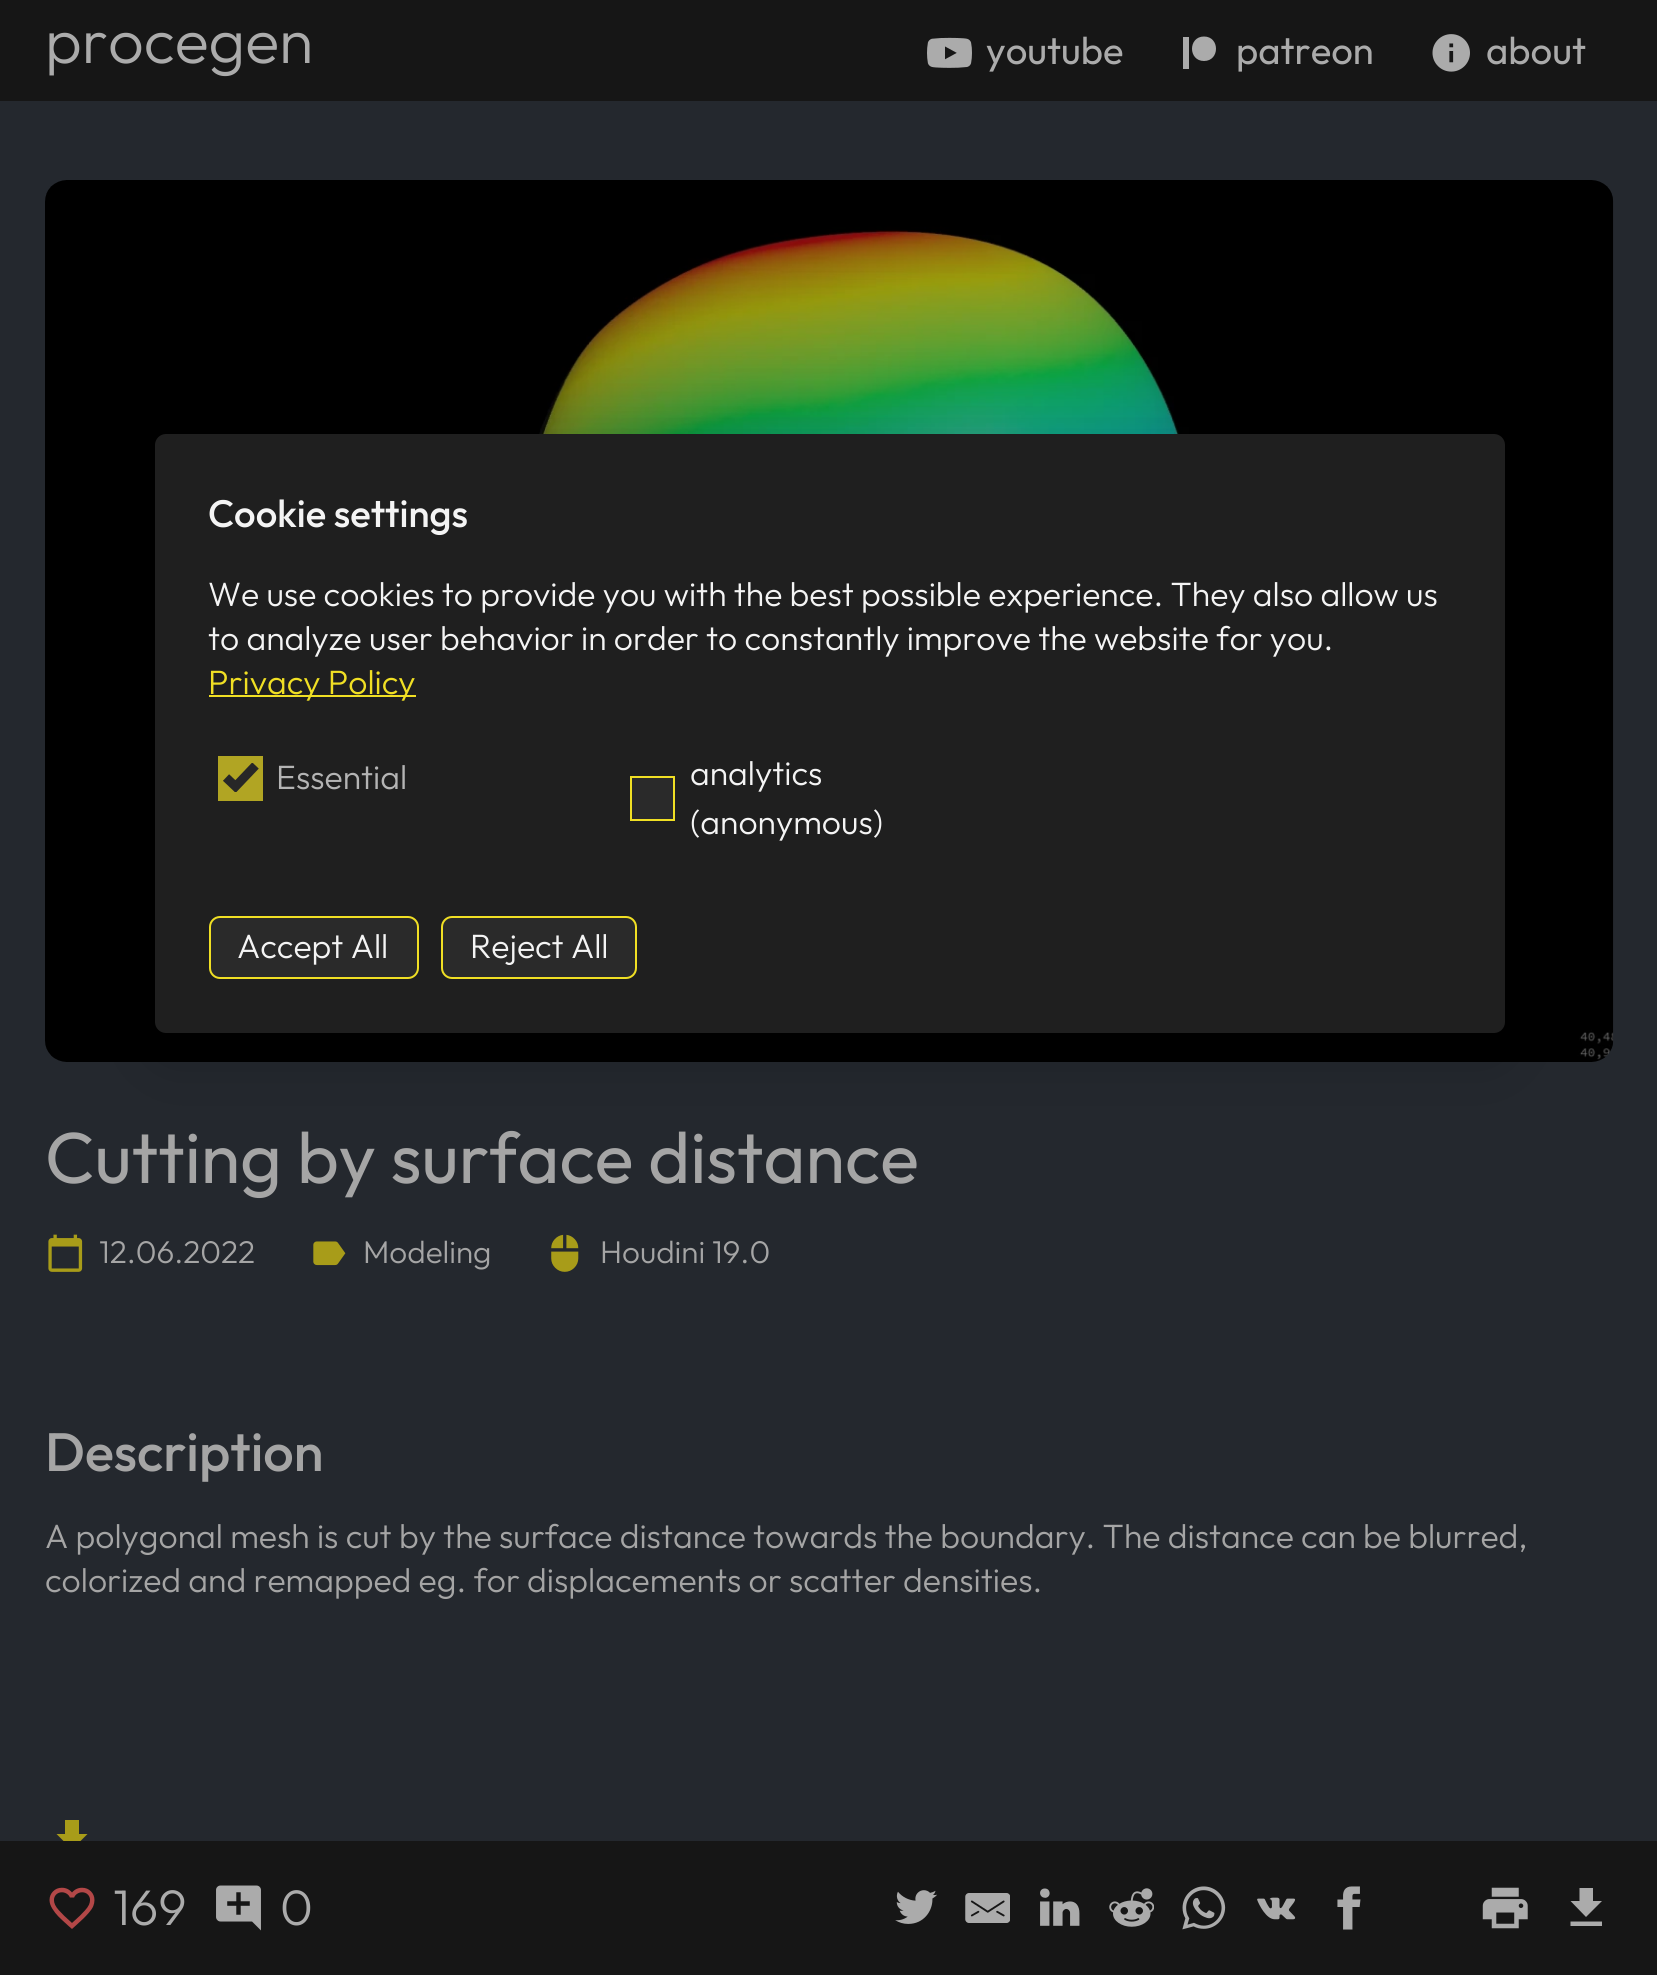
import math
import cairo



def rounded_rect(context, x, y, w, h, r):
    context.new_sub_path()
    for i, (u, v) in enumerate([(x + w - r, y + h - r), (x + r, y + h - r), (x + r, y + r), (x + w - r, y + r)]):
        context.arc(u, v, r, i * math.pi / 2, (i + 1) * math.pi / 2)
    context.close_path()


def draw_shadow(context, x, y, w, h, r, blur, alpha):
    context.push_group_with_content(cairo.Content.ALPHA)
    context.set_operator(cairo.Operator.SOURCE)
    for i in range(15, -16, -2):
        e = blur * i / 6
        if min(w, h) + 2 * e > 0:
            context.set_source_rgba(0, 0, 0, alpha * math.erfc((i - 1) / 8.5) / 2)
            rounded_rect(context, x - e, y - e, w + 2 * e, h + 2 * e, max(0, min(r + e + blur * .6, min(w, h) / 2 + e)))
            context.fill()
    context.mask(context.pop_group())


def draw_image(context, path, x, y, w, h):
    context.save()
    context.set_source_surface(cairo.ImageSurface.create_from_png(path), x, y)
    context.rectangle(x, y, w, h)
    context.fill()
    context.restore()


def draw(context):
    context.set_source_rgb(36 / 255, 40 / 255, 46 / 255)
    context.paint()
    context.set_source_rgb(22 / 255, 22 / 255, 22 / 255)
    context.rectangle(0, 0, 1657, 101)
    context.fill()
    draw_image(context, "images/1.png", 927, 37, 45, 31)
    context.set_source_rgb(171 / 255, 171 / 255, 171 / 255)
    context.new_path()
    context.move_to(1204, 61)
    context.curve_to(1220, 61, 1220, 36.5, 1204, 36.5)
    context.curve_to(1188, 36.5, 1188, 61, 1204, 61)
    context.close_path()
    context.fill()
    context.rectangle(1183, 37, 6, 32)
    context.fill()
    draw_image(context, "images/2.png", 1432, 34, 38, 38)
    draw_image(context, "images/3.png", 45, 180, 1569, 882)
    context.set_source_rgb(0, 0, 0)
    draw_shadow(context, 155, 457, 1350, 598, 11, 34, 0.2)
    context.set_source_rgb(31 / 255, 31 / 255, 31 / 255)
    rounded_rect(context, 155, 434, 1350, 599, 11)
    context.fill()
    context.set_source_rgb(240 / 255, 223 / 255, 36 / 255)
    context.rectangle(209, 695, 207, 2)
    context.fill()
    context.set_source_rgb(177 / 255, 165 / 255, 35 / 255)
    context.rectangle(218, 756, 45, 45)
    context.fill()
    context.save()
    context.rectangle(223, 763, 36, 29)
    context.clip()
    context.new_path()
    context.move_to(226, 777.5)
    context.line_to(235.5, 786.5)
    context.line_to(255.5, 765.5)
    context.set_source_rgb(39 / 255, 39 / 255, 39 / 255)
    context.set_line_width(9)
    context.stroke()
    context.restore()
    context.set_source_rgb(42 / 255, 42 / 255, 42 / 255)
    context.rectangle(631, 777, 43, 43)
    context.fill_preserve()
    context.set_source_rgb(240 / 255, 223 / 255, 36 / 255)
    context.stroke()
    context.set_source_rgb(42 / 255, 42 / 255, 42 / 255)
    rounded_rect(context, 210, 917, 208, 61, 10)
    context.fill_preserve()
    context.set_source_rgb(240 / 255, 223 / 255, 36 / 255)
    context.stroke()
    context.set_source_rgb(42 / 255, 42 / 255, 42 / 255)
    rounded_rect(context, 442, 917, 194, 61, 10)
    context.fill_preserve()
    context.set_source_rgb(240 / 255, 223 / 255, 36 / 255)
    context.stroke()
    draw_image(context, "images/4.png", 48, 1234, 35, 38)
    draw_image(context, "images/5.png", 313, 1241, 33, 25)
    draw_image(context, "images/6.png", 551, 1234, 28, 38)
    context.set_source_rgb(168 / 255, 156 / 255, 25 / 255)
    context.new_path()
    context.move_to(56.5, 1858.5)
    context.line_to(87.5, 1858.5)
    context.line_to(87.5, 1854)
    context.line_to(56.5, 1854)
    context.close_path()
    context.move_to(87.5, 1834)
    context.line_to(79, 1834)
    context.line_to(79, 1820)
    context.line_to(65, 1820)
    context.line_to(65, 1834)
    context.line_to(56.5, 1834)
    context.line_to(72, 1849.5)
    context.close_path()
    context.fill()
    context.set_source_rgb(22 / 255, 22 / 255, 22 / 255)
    context.rectangle(0, 1841, 1657, 134)
    context.fill()
    draw_image(context, "images/7.png", 49, 1887, 46, 42)
    draw_image(context, "images/8.png", 216, 1885, 45, 46)
    draw_image(context, "images/9.png", 895, 1890, 42, 34)
    draw_image(context, "images/10.png", 965, 1893, 45, 30)
    draw_image(context, "images/11.png", 1040, 1888, 40, 38)
    draw_image(context, "images/12.png", 1109, 1888, 45, 39)
    draw_image(context, "images/13.png", 1182, 1886, 44, 44)
    draw_image(context, "images/14.png", 1257, 1897, 39, 23)
    draw_image(context, "images/15.png", 1337, 1886, 24, 44)
    draw_image(context, "images/16.png", 1482, 1887, 46, 42)
    context.set_source_rgb(171 / 255, 171 / 255, 171 / 255)
    context.new_path()
    context.move_to(1570.5, 1921.5)
    context.line_to(1602, 1921.5)
    context.line_to(1602, 1926)
    context.line_to(1570.5, 1926)
    context.close_path()
    context.move_to(1602, 1901)
    context.line_to(1586, 1917)
    context.line_to(1570.5, 1901)
    context.line_to(1579.5, 1901)
    context.line_to(1579.5, 1888)
    context.line_to(1593, 1888)
    context.line_to(1593, 1901)
    context.close_path()
    context.fill()
    context.select_font_face("Outfit Light")
    context.set_font_size(63)
    context.move_to(45, 63)
    context.show_text("procegen")
    context.select_font_face("Outfit")
    context.set_font_size(38.25)
    context.move_to(986, 64)
    context.show_text("youtube")
    context.move_to(1236, 64)
    context.show_text("patreon")
    context.move_to(1486, 64)
    context.show_text("about")
    context.select_font_face("Outfit Medium")
    context.set_source_rgb(244 / 255, 244 / 255, 244 / 255)
    context.move_to(208, 527)
    context.show_text("Cookie settings")
    context.select_font_face("Outfit Light")
    context.set_font_size(33.75)
    context.move_to(208, 606)
    context.show_text("We use cookies to provide you with the best possible experience. They also allow us")
    context.move_to(208, 650)
    context.show_text("to analyze user behavior in order to constantly improve the website for you.")
    context.set_source_rgb(240 / 255, 223 / 255, 36 / 255)
    context.move_to(208, 694)
    context.show_text("Privacy Policy")
    context.set_source_rgb(180 / 255, 180 / 255, 180 / 255)
    context.move_to(276, 789)
    context.show_text("Essential")
    context.set_source_rgb(244 / 255, 244 / 255, 244 / 255)
    context.move_to(690, 785)
    context.show_text("analytics")
    context.move_to(690, 834)
    context.show_text("(anonymous)")
    context.move_to(237, 958)
    context.show_text("Accept All")
    context.move_to(470, 958)
    context.show_text("Reject All")
    context.select_font_face("Outfit")
    context.set_font_size(72)
    context.set_source_rgb(165 / 255, 165 / 255, 165 / 255)
    context.move_to(45, 1183)
    context.show_text("Cutting by surface distance")
    context.select_font_face("Outfit Light")
    context.set_font_size(31.5)
    context.move_to(99, 1263)
    context.show_text("12.06.2022")
    context.move_to(363, 1263)
    context.show_text("Modeling")
    context.move_to(600, 1263)
    context.show_text("Houdini 19.0")
    context.select_font_face("Outfit Medium")
    context.set_font_size(54)
    context.move_to(45, 1471)
    context.show_text("Description")
    context.select_font_face("Outfit Light")
    context.set_font_size(33.75)
    context.move_to(45, 1548)
    context.show_text("A polygonal mesh is cut by the surface distance towards the boundary. The distance can be blurred,")
    context.move_to(45, 1592)
    context.show_text("colorized and remapped eg. for displacements or scatter densities.")
    context.set_font_size(50)
    context.set_source_rgb(171 / 255, 171 / 255, 171 / 255)
    context.move_to(113, 1925)
    context.show_text("169")
    context.move_to(280, 1925)
    context.show_text("0")


surface = cairo.ImageSurface(cairo.Format.RGB24, 1657, 1975)
context = cairo.Context(surface)
options = cairo.FontOptions()
options.set_hint_metrics(cairo.HintMetrics.OFF)
options.set_hint_style(cairo.HintStyle.NONE)
context.set_font_options(options)
context.set_miter_limit(4)
draw(context)
surface.write_to_png("out.png")
